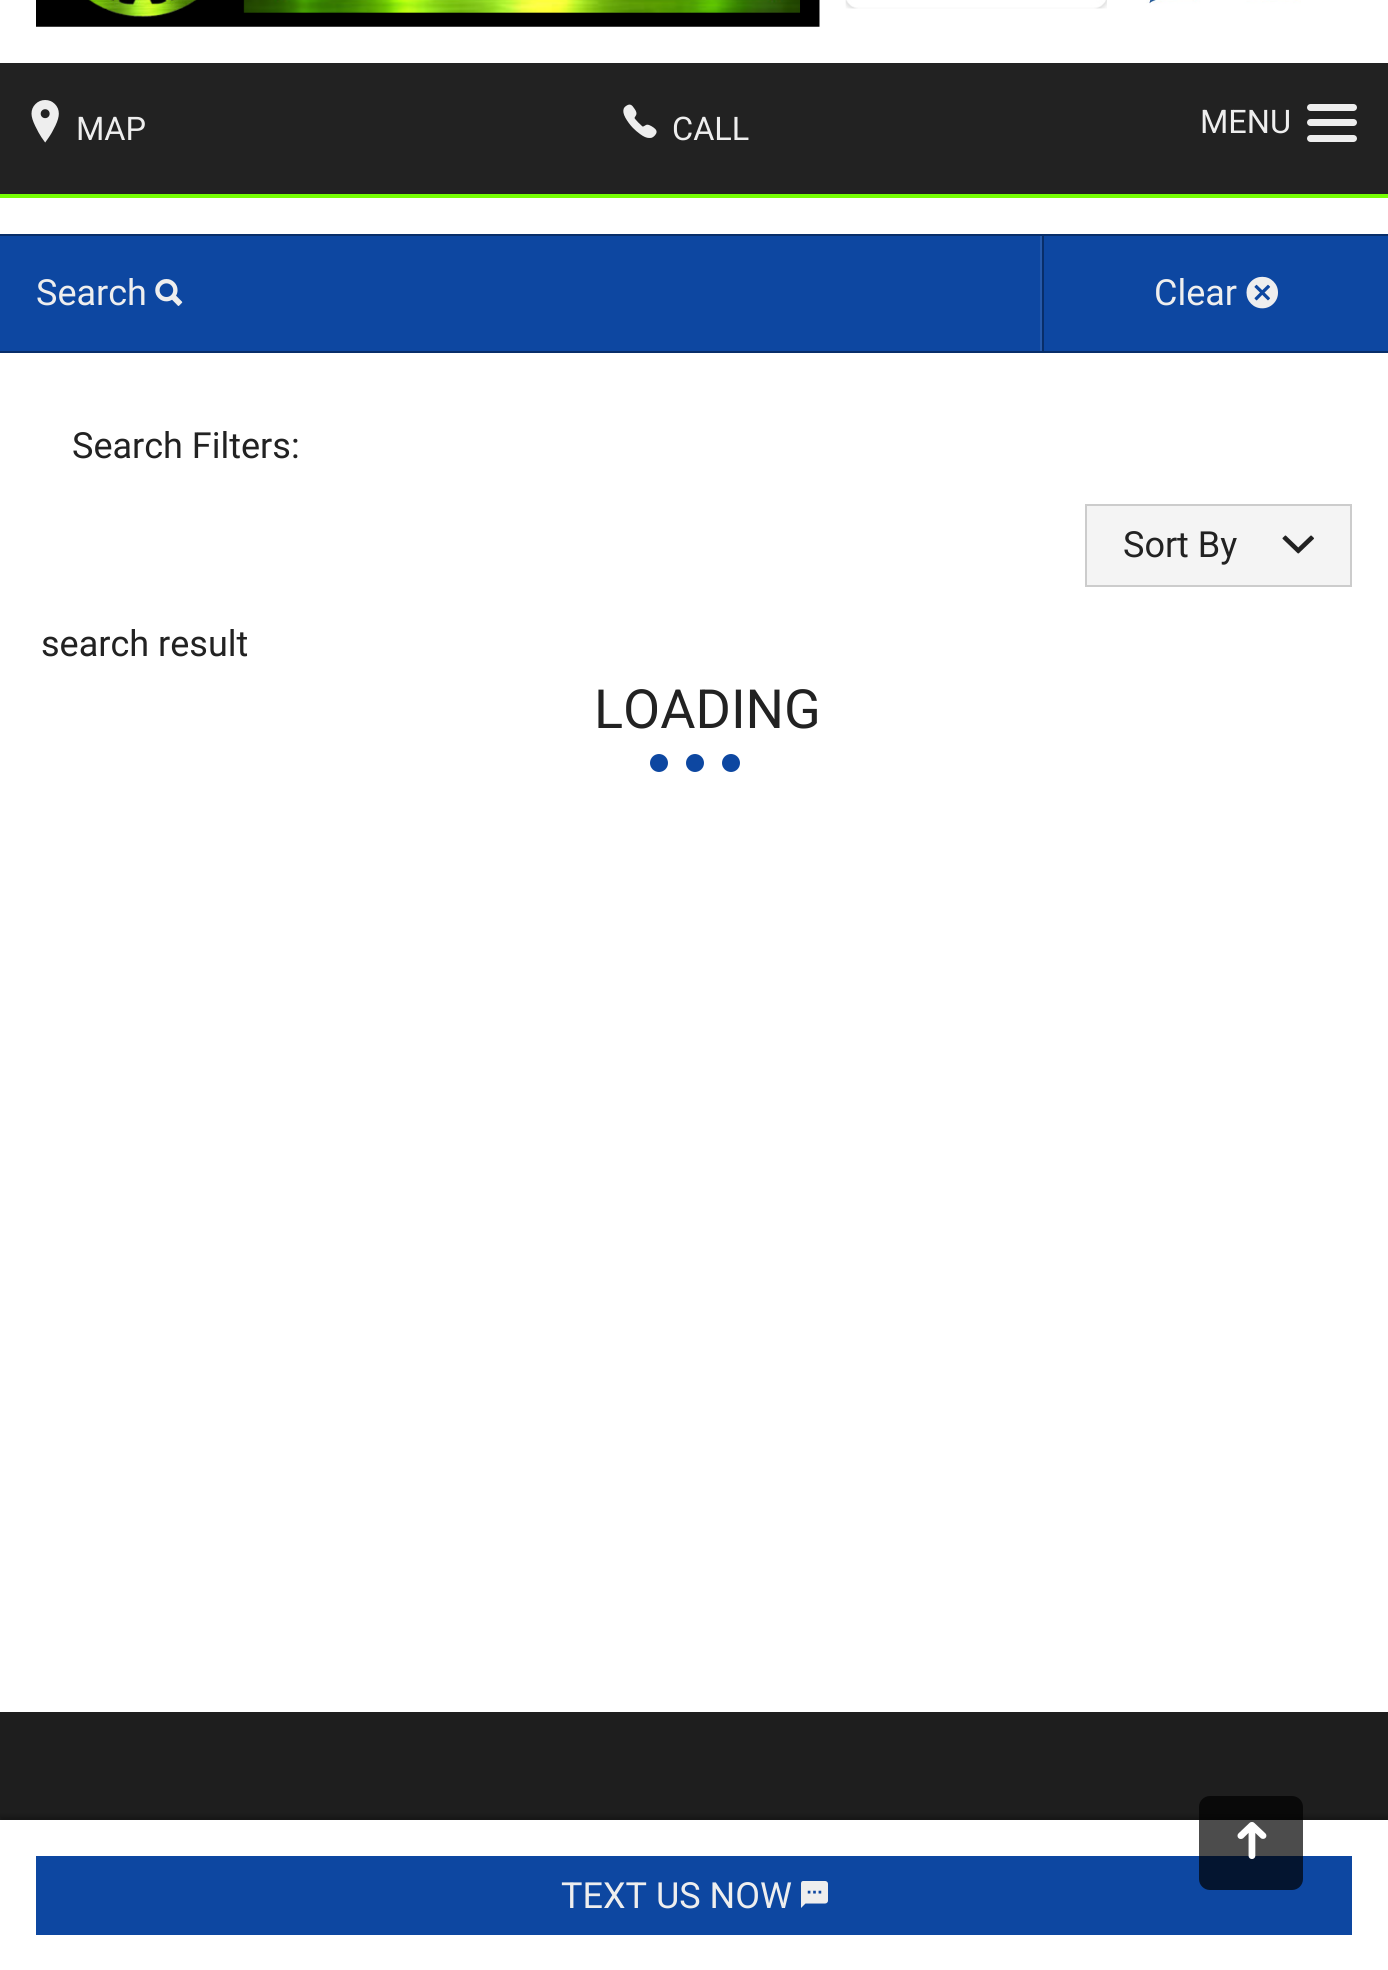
import math
import cairo



def rounded_rect(context, x, y, w, h, r):
    context.new_sub_path()
    for i, (u, v) in enumerate([(x + w - r, y + h - r), (x + r, y + h - r), (x + r, y + r), (x + w - r, y + r)]):
        context.arc(u, v, r, i * math.pi / 2, (i + 1) * math.pi / 2)
    context.close_path()


def draw_shadow(context, x, y, w, h, r, blur, alpha):
    context.push_group_with_content(cairo.Content.ALPHA)
    context.set_operator(cairo.Operator.SOURCE)
    for i in range(15, -16, -2):
        e = blur * i / 6
        if min(w, h) + 2 * e > 0:
            context.set_source_rgba(0, 0, 0, alpha * math.erfc((i - 1) / 8.5) / 2)
            rounded_rect(context, x - e, y - e, w + 2 * e, h + 2 * e, max(0, min(r + e + blur * .6, min(w, h) / 2 + e)))
            context.fill()
    context.mask(context.pop_group())


def draw_image(context, path, x, y, w, h):
    context.save()
    context.set_source_surface(cairo.ImageSurface.create_from_png(path), x, y)
    context.rectangle(x, y, w, h)
    context.fill()
    context.restore()


def draw(context):
    context.set_source_rgb(1, 1, 1)
    context.paint()
    draw_image(context, "images/1.png", 36, 0, 1265, 27)
    context.set_source_rgb(34 / 255, 34 / 255, 34 / 255)
    context.rectangle(0, 63, 1388, 131)
    context.fill()
    context.set_source_rgb(118 / 255, 1, 3 / 255)
    context.rectangle(0, 194, 1388, 4)
    context.fill()
    draw_image(context, "images/2.png", 31, 100, 28, 43)
    draw_image(context, "images/3.png", 623, 104, 34, 34)
    context.set_source_rgb(238 / 255, 238 / 255, 238 / 255)
    rounded_rect(context, 1307, 104, 50, 7, 3.5)
    context.fill()
    rounded_rect(context, 1307, 119, 50, 7, 3.5)
    context.fill()
    rounded_rect(context, 1307, 135, 50, 7, 3.5)
    context.fill()
    context.set_source_rgb(13 / 255, 71 / 255, 161 / 255)
    context.rectangle(0, 236, 1388, 115)
    context.fill()
    context.set_source_rgb(8 / 255, 46 / 255, 105 / 255)
    context.rectangle(0, 234, 1388, 2)
    context.fill()
    context.rectangle(0, 351, 1388, 2)
    context.fill()
    context.set_source_rgb(37 / 255, 89 / 255, 170 / 255)
    context.rectangle(1040, 236, 2, 115)
    context.fill()
    draw_image(context, "images/4.png", 155, 279, 28, 27)
    context.set_source_rgb(8 / 255, 46 / 255, 105 / 255)
    context.rectangle(1042, 236, 2, 115)
    context.fill()
    draw_image(context, "images/5.png", 1246, 276, 32, 33)
    context.set_source_rgb(244 / 255, 244 / 255, 244 / 255)
    context.rectangle(1086, 505, 265, 81)
    context.fill_preserve()
    context.set_source_rgb(204 / 255, 204 / 255, 204 / 255)
    context.stroke()
    draw_image(context, "images/6.png", 1282, 535, 32, 19)
    context.set_source_rgb(13 / 255, 71 / 255, 161 / 255)
    context.arc(695, 763, 9, 0, 2 * math.pi)
    context.fill()
    context.arc(659, 763, 9, 0, 2 * math.pi)
    context.fill()
    context.arc(731, 763, 9, 0, 2 * math.pi)
    context.fill()
    context.set_source_rgb(30 / 255, 30 / 255, 30 / 255)
    context.rectangle(0, 1712, 1388, 108)
    context.fill()
    context.set_source_rgb(0, 0, 0)
    draw_shadow(context, 0, 1816, 1388, 151, 0, 2, 0.25)
    context.set_source_rgb(1, 1, 1)
    context.rectangle(0, 1820, 1388, 150)
    context.fill()
    context.set_source_rgb(13 / 255, 71 / 255, 161 / 255)
    context.rectangle(36, 1856, 1316, 79)
    context.fill()
    draw_image(context, "images/7.png", 801, 1881, 27, 27)
    context.set_source_rgba(0, 0, 0, 0.7)
    rounded_rect(context, 1199, 1796, 104, 94, 11)
    context.fill()
    draw_image(context, "images/8.png", 1237, 1822, 30, 37)
    context.select_font_face("Roboto")
    context.set_font_size(32.5)
    context.set_source_rgb(238 / 255, 238 / 255, 238 / 255)
    context.move_to(76, 140)
    context.show_text("MAP")
    context.move_to(672, 140)
    context.show_text("CALL")
    context.move_to(1200, 133)
    context.show_text("MENU")
    context.set_font_size(36)
    context.move_to(36, 305)
    context.show_text("Search")
    context.move_to(1154, 305)
    context.show_text("Clear")
    context.set_source_rgb(34 / 255, 34 / 255, 34 / 255)
    context.move_to(72, 458)
    context.show_text("Search Filters:")
    context.move_to(1123, 557)
    context.show_text("Sort By")
    context.move_to(41, 656)
    context.show_text("search result")
    context.set_font_size(54)
    context.move_to(594, 728)
    context.show_text("LOADING")
    context.set_font_size(36)
    context.set_source_rgb(238 / 255, 238 / 255, 238 / 255)
    context.move_to(561, 1908)
    context.show_text("TEXT US NOW")


surface = cairo.ImageSurface(cairo.Format.RGB24, 1388, 1970)
context = cairo.Context(surface)
options = cairo.FontOptions()
options.set_hint_metrics(cairo.HintMetrics.OFF)
options.set_hint_style(cairo.HintStyle.NONE)
context.set_font_options(options)
context.set_miter_limit(4)
draw(context)
surface.write_to_png("out.png")
